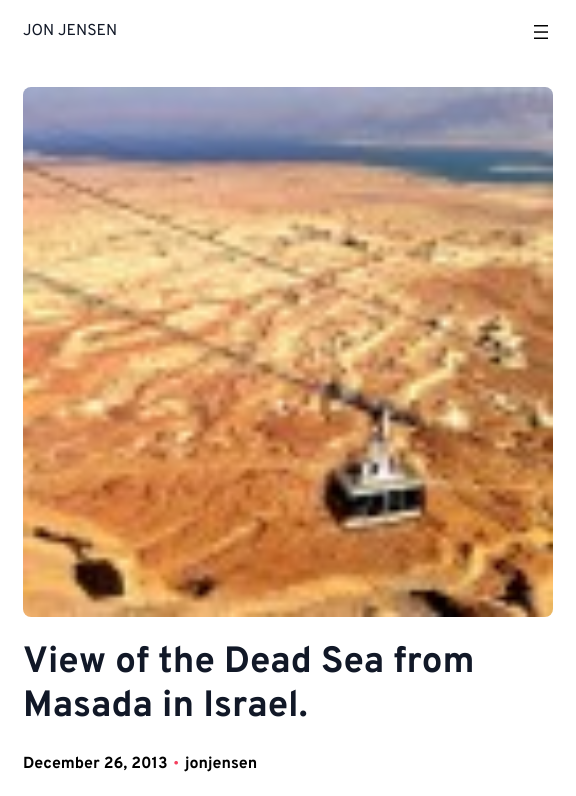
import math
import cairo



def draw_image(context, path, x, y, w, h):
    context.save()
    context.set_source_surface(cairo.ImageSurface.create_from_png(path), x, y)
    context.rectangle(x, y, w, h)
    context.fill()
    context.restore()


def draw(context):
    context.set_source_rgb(1, 1, 1)
    context.paint()
    draw_image(context, "images/1.png", 534, 25, 14, 14)
    draw_image(context, "images/2.png", 23, 87, 530, 530)
    context.select_font_face("Overpass")
    context.set_font_size(15.75)
    context.set_source_rgb(17 / 255, 24 / 255, 39 / 255)
    context.move_to(23, 35)
    context.show_text("JON JENSEN")
    context.select_font_face("Overpass", cairo.FontSlant.NORMAL, cairo.FontWeight.BOLD)
    context.set_font_size(36.6)
    context.move_to(23, 672)
    context.show_text("View of the Dead Sea from")
    context.move_to(23, 716)
    context.show_text("Masada in Israel.")
    context.set_font_size(16)
    context.set_source_rgb(0, 0, 0)
    context.move_to(23, 768)
    context.show_text("December 26, 2013")
    context.select_font_face("Overpass")
    context.set_font_size(15)
    context.set_source_rgb(244 / 255, 63 / 255, 94 / 255)
    context.move_to(173, 768)
    context.show_text("•")
    context.select_font_face("Overpass", cairo.FontSlant.NORMAL, cairo.FontWeight.BOLD)
    context.set_font_size(16)
    context.set_source_rgb(0, 0, 0)
    context.move_to(185, 768)
    context.show_text("jonjensen")


surface = cairo.ImageSurface(cairo.Format.RGB24, 576, 796)
context = cairo.Context(surface)
options = cairo.FontOptions()
options.set_hint_metrics(cairo.HintMetrics.OFF)
options.set_hint_style(cairo.HintStyle.NONE)
context.set_font_options(options)
context.set_miter_limit(4)
draw(context)
surface.write_to_png("out.png")
